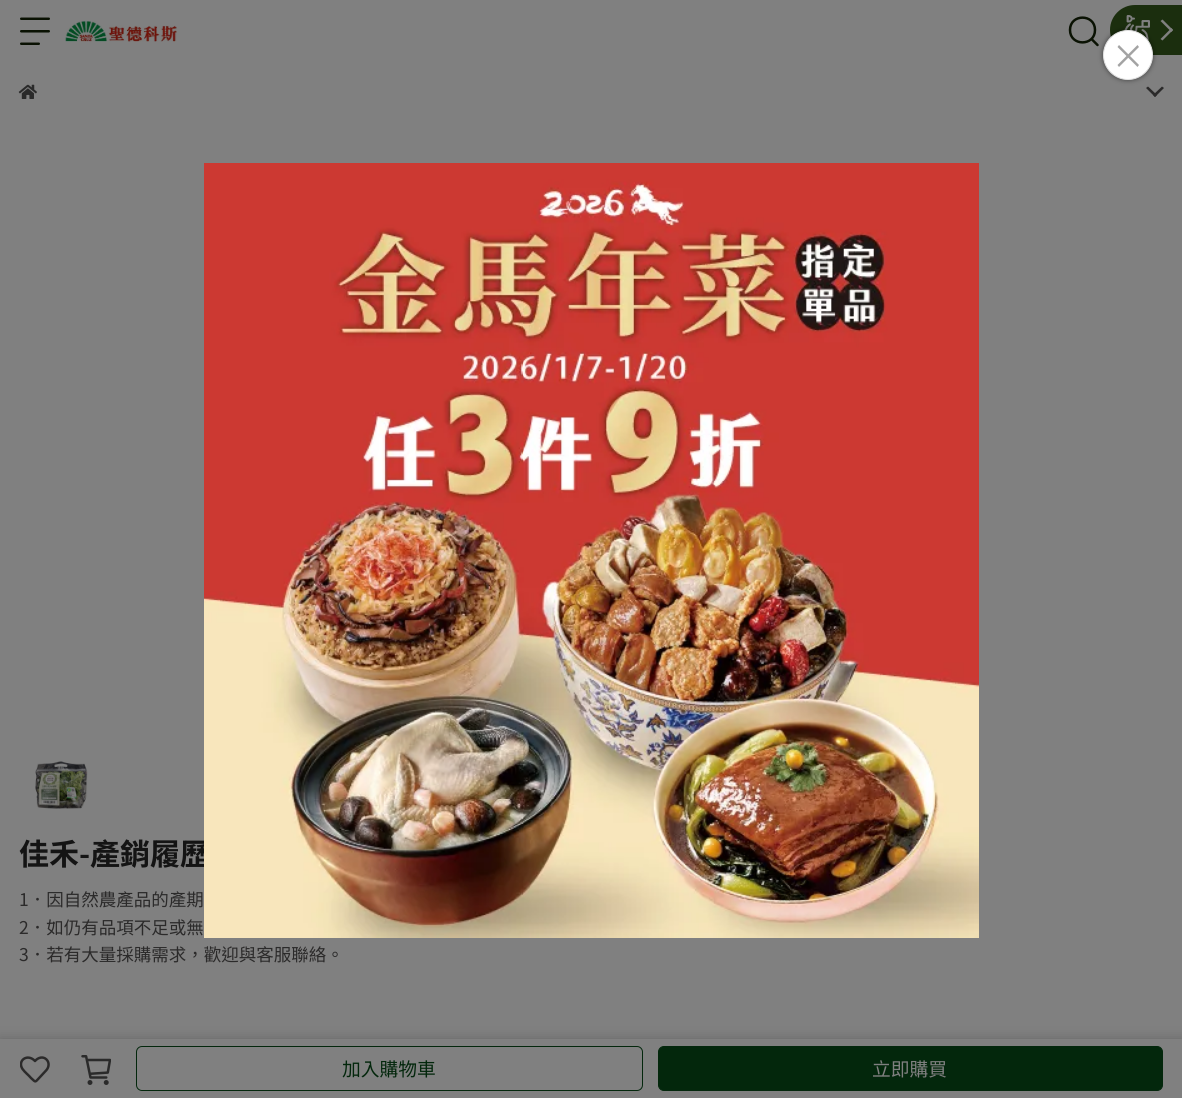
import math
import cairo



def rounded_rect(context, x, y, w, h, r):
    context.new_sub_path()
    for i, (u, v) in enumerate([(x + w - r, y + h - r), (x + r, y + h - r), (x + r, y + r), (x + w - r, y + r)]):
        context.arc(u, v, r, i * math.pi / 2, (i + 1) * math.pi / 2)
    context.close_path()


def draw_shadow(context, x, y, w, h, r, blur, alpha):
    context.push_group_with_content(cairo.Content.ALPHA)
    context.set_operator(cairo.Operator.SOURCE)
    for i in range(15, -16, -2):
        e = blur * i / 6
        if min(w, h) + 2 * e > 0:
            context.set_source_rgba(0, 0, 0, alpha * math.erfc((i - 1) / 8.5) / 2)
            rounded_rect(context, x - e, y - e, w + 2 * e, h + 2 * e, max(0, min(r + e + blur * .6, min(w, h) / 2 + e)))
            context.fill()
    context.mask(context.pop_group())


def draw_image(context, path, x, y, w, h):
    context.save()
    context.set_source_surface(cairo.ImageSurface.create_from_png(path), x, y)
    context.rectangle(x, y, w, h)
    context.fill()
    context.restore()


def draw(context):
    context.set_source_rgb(128 / 255, 128 / 255, 128 / 255)
    context.paint()
    draw_image(context, "images/1.png", 20, 17, 30, 28)
    draw_image(context, "images/2.png", 65, 20, 112, 22)
    context.new_path()
    context.move_to(1095, 30)
    context.curve_to(1095, 46.5, 1070, 46.5, 1070, 30)
    context.curve_to(1070, 13.5, 1095, 13.5, 1095, 30)
    context.close_path()
    context.move_to(1092.5, 40)
    context.line_to(1097.5, 45)
    context.set_source_rgb(10 / 255, 18 / 255, 3 / 255)
    context.set_line_width(2.5)
    context.set_line_cap(cairo.LineCap.ROUND)
    context.set_line_join(cairo.LineJoin.ROUND)
    context.stroke()
    context.set_source_rgb(27 / 255, 46 / 255, 14 / 255)
    rounded_rect(context, 1110, 5, 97, 50, 25)
    context.fill()
    draw_image(context, "images/3.png", 1124, 15, 26, 26)
    context.set_source_rgb(128 / 255, 128 / 255, 128 / 255)
    context.new_path()
    context.move_to(1160.5, 21)
    context.line_to(1162.5, 19.5)
    context.line_to(1173, 30)
    context.line_to(1171.5, 32)
    context.close_path()
    context.fill()
    context.new_path()
    context.move_to(1160.5, 39)
    context.line_to(1171.5, 28)
    context.line_to(1173, 30)
    context.line_to(1162.5, 40.5)
    context.close_path()
    context.fill()
    context.set_source_rgb(43 / 255, 42 / 255, 42 / 255)
    context.new_path()
    context.move_to(1153, 95)
    context.line_to(1162, 86.5)
    context.line_to(1164, 88)
    context.line_to(1155, 97)
    context.close_path()
    context.fill()
    context.new_path()
    context.move_to(1146, 88)
    context.line_to(1148, 86.5)
    context.line_to(1157, 95)
    context.line_to(1155, 97)
    context.close_path()
    context.fill()
    context.set_source_rgb(0, 0, 0)
    draw_shadow(context, 1103, 30, 50, 50, 25, 2.5, 0.5)
    context.set_source_rgb(1, 1, 1)
    context.arc(1128, 55, 24.5, 0, 2 * math.pi)
    context.fill_preserve()
    context.set_source_rgb(226 / 255, 226 / 255, 226 / 255)
    context.set_line_width(1)
    context.set_line_cap(cairo.LineCap.BUTT)
    context.set_line_join(cairo.LineJoin.MITER)
    context.stroke()
    context.set_source_rgb(163 / 255, 163 / 255, 163 / 255)
    context.new_path()
    context.move_to(1119, 45)
    context.line_to(1139, 65)
    context.line_to(1137.5, 67)
    context.line_to(1117.5, 47)
    context.close_path()
    context.fill()
    context.new_path()
    context.move_to(1117.5, 65)
    context.line_to(1137.5, 45)
    context.line_to(1139, 47)
    context.line_to(1119, 67)
    context.close_path()
    context.fill()
    draw_image(context, "images/5.png", 18, 84, 19, 15)
    draw_image(context, "images/6.png", 35, 761, 53, 48)
    context.set_source_rgb(0, 0, 0)
    draw_shadow(context, 0, 1039, 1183, 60, 0, 6, 0.2)
    context.set_source_rgb(128 / 255, 128 / 255, 128 / 255)
    context.rectangle(0, 1039, 1182, 59)
    context.fill()
    context.save()
    context.rectangle(20, 1054, 30, 30)
    context.clip()
    context.new_path()
    context.move_to(46.5, 1059.5)
    context.curve_to(43, 1056, 38, 1057.5, 35, 1061)
    context.curve_to(27.5, 1053, 17, 1060.5, 22.5, 1069)
    context.curve_to(25, 1072.5, 28.5, 1075, 31, 1078)
    context.curve_to(36.5, 1083, 34.5, 1082.5, 40.5, 1076.5)
    context.line_to(46.5, 1070)
    context.curve_to(49, 1067, 49.5, 1062.5, 46.5, 1059.5)
    context.close_path()
    context.set_source_rgb(43 / 255, 42 / 255, 42 / 255)
    context.set_line_width(2.5)
    context.set_line_cap(cairo.LineCap.ROUND)
    context.set_line_join(cairo.LineJoin.ROUND)
    context.stroke()
    context.restore()
    draw_image(context, "images/7.png", 81, 1055, 30, 30)
    rounded_rect(context, 136.5, 1046.5, 506, 44, 5.5)
    context.set_source_rgb(3 / 255, 39 / 255, 12 / 255)
    context.stroke()
    rounded_rect(context, 658.5, 1046.5, 504, 44, 5.5)
    context.fill_preserve()
    context.stroke()
    context.select_font_face("Noto Sans TC", cairo.FontSlant.NORMAL, cairo.FontWeight.BOLD)
    context.set_font_size(30)
    context.set_source_rgb(20 / 255, 20 / 255, 20 / 255)
    context.move_to(19, 865)
    context.show_text("佳禾-產銷履歷")
    draw_image(context, "images/4.png", 204, 163, 775, 775)
    context.select_font_face("Noto Sans TC")
    context.set_font_size(17.5)
    context.set_source_rgb(43 / 255, 42 / 255, 42 / 255)
    context.move_to(19, 906)
    context.show_text("1．因自然農產品的產期")
    context.move_to(19, 934)
    context.show_text("2．如仍有品項不足或無")
    context.move_to(19, 961)
    context.show_text("3．若有大量採購需求，歡迎與客服聯絡。")
    context.set_font_size(18.75)
    context.set_source_rgb(3 / 255, 39 / 255, 12 / 255)
    context.move_to(342, 1076)
    context.show_text("加入購物車")
    context.set_source_rgb(128 / 255, 128 / 255, 128 / 255)
    context.move_to(872, 1076)
    context.show_text("立即購買")


surface = cairo.ImageSurface(cairo.Format.RGB24, 1182, 1098)
context = cairo.Context(surface)
options = cairo.FontOptions()
options.set_hint_metrics(cairo.HintMetrics.OFF)
options.set_hint_style(cairo.HintStyle.NONE)
context.set_font_options(options)
context.set_miter_limit(4)
draw(context)
surface.write_to_png("out.png")
